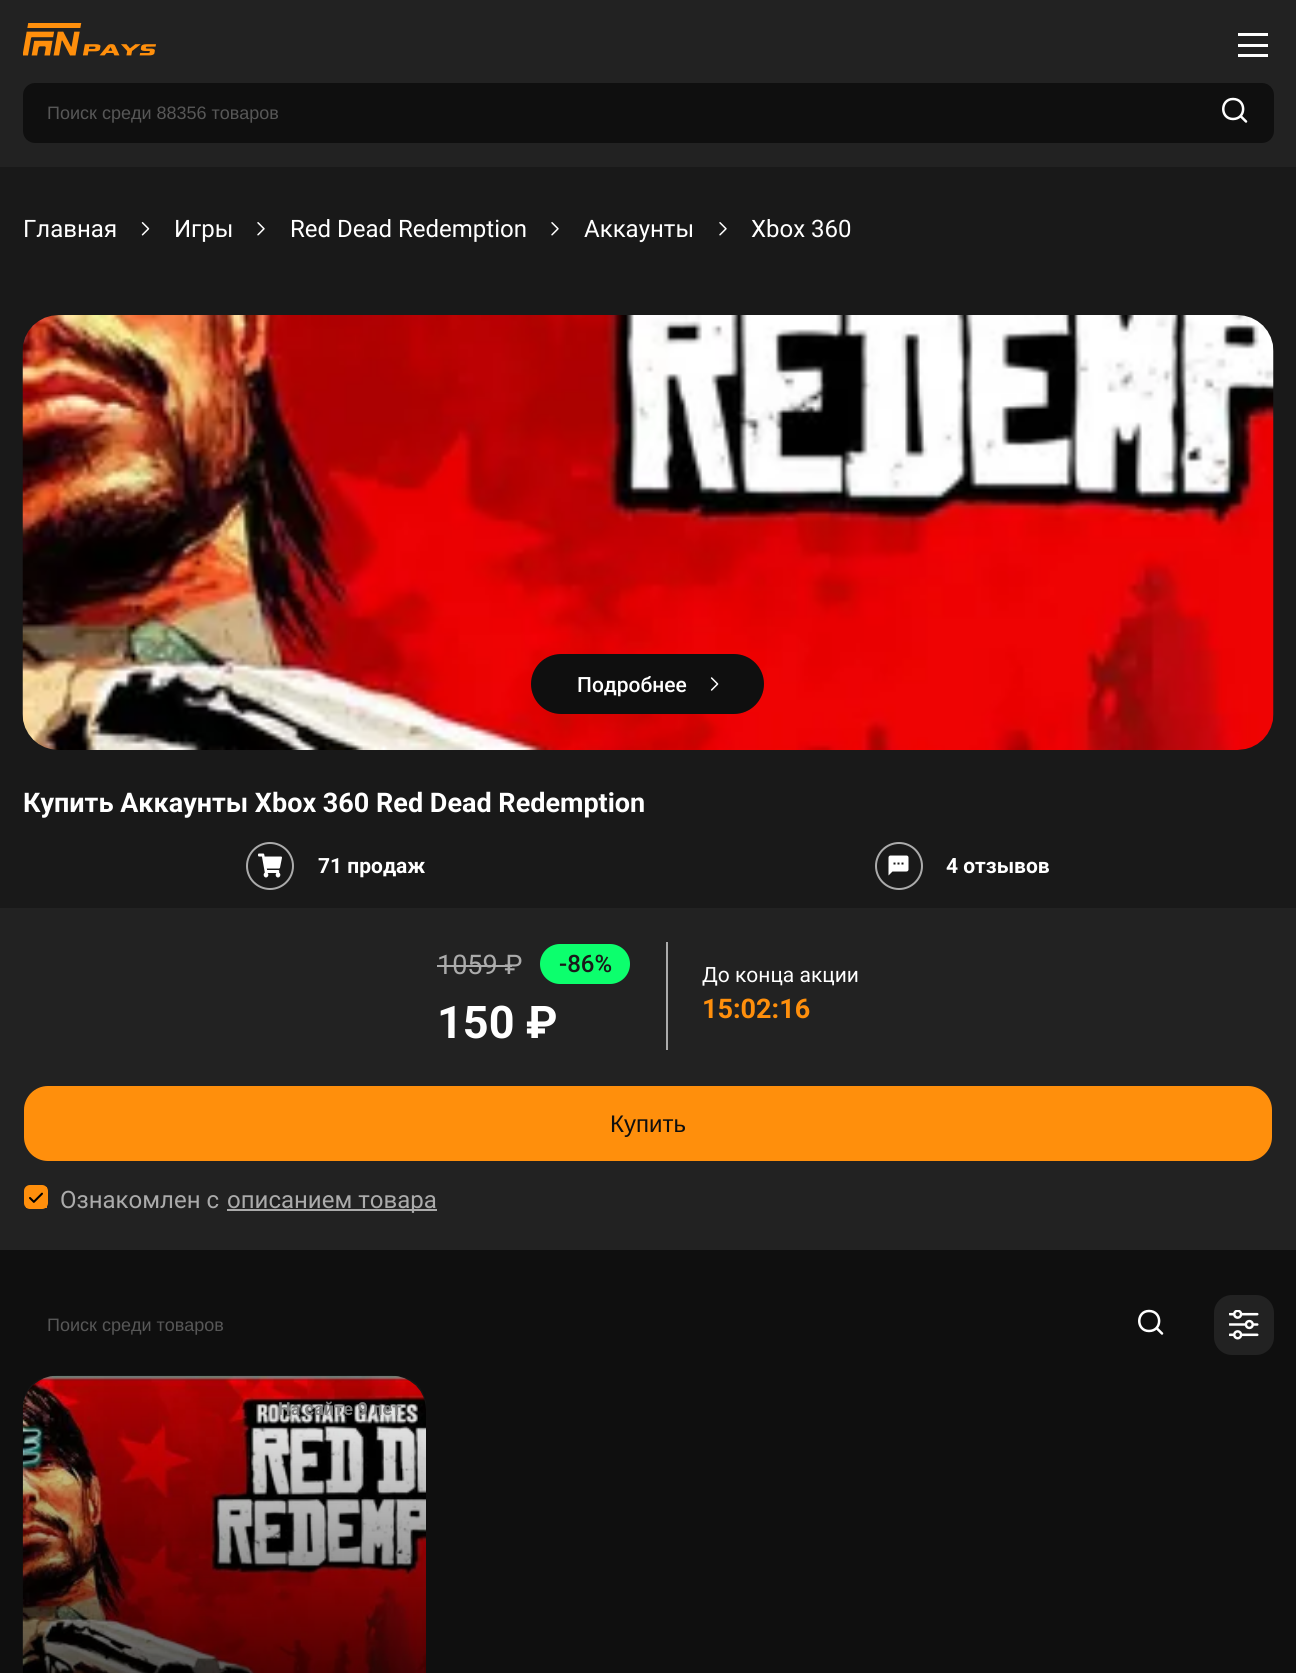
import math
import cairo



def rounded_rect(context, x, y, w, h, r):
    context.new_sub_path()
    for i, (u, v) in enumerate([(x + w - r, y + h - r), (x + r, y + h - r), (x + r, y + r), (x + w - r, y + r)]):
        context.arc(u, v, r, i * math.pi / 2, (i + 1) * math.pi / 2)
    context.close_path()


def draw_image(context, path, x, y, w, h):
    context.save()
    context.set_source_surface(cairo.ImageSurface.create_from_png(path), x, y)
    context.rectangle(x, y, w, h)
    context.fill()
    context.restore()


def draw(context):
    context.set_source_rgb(15 / 255, 15 / 255, 15 / 255)
    context.paint()
    context.set_source_rgb(34 / 255, 34 / 255, 34 / 255)
    context.rectangle(0, 0, 1296, 167)
    context.fill()
    draw_image(context, "images/1.png", 23, 23, 133, 33)
    context.set_source_rgb(1, 1, 1)
    context.rectangle(1238, 33, 30, 3)
    context.fill()
    context.rectangle(1238, 44, 30, 3)
    context.fill()
    context.rectangle(1238, 54, 30, 3)
    context.fill()
    context.set_source_rgb(15 / 255, 15 / 255, 15 / 255)
    rounded_rect(context, 23, 83, 1251, 60, 12)
    context.fill()
    context.new_path()
    context.move_to(1233, 119)
    context.curve_to(1246.5, 119, 1246.5, 99, 1233, 99)
    context.curve_to(1220, 99, 1220, 119, 1233, 119)
    context.close_path()
    context.move_to(1246, 121.5)
    context.line_to(1240.5, 116)
    context.set_source_rgb(1, 1, 1)
    context.set_line_width(2.5)
    context.set_line_cap(cairo.LineCap.ROUND)
    context.set_line_join(cairo.LineJoin.ROUND)
    context.stroke()
    context.set_source_rgb(25 / 255, 25 / 255, 25 / 255)
    context.rectangle(0, 167, 1296, 741)
    context.fill()
    draw_image(context, "images/2.png", 141, 222, 9, 14)
    draw_image(context, "images/3.png", 257, 222, 8, 14)
    draw_image(context, "images/3.png", 551, 222, 8, 14)
    draw_image(context, "images/3.png", 719, 222, 8, 14)
    draw_image(context, "images/4.png", 22, 315, 1252, 435)
    context.set_source_rgb(15 / 255, 15 / 255, 15 / 255)
    rounded_rect(context, 531, 654, 233, 60, 30)
    context.fill()
    draw_image(context, "images/5.png", 710, 677, 9, 14)
    context.arc(270, 866, 23, 0, 2 * math.pi)
    context.set_source_rgb(171 / 255, 171 / 255, 171 / 255)
    context.set_line_width(2)
    context.set_line_cap(cairo.LineCap.BUTT)
    context.set_line_join(cairo.LineJoin.MITER)
    context.stroke()
    draw_image(context, "images/6.png", 258, 853, 24, 25)
    context.arc(899, 866, 23, 0, 2 * math.pi)
    context.stroke()
    draw_image(context, "images/7.png", 888, 855, 21, 21)
    context.set_source_rgb(34 / 255, 34 / 255, 34 / 255)
    context.rectangle(0, 908, 1296, 342)
    context.fill()
    context.set_source_rgb(171 / 255, 171 / 255, 171 / 255)
    context.rectangle(437, 965, 75, 2)
    context.fill()
    context.set_source_rgb(12 / 255, 1, 109 / 255)
    rounded_rect(context, 540, 944, 90, 40, 20)
    context.fill()
    context.set_source_rgb(171 / 255, 171 / 255, 171 / 255)
    context.rectangle(666, 942, 2, 108)
    context.fill()
    context.set_source_rgb(1, 143 / 255, 12 / 255)
    rounded_rect(context, 24, 1086, 1248, 75, 24)
    context.fill()
    rounded_rect(context, 25, 1186, 22, 22, 5)
    context.stroke()
    context.rectangle(26, 1187, 21, 21)
    context.fill()
    draw_image(context, "images/8.png", 29, 1192, 14, 11)
    context.set_source_rgb(171 / 255, 171 / 255, 171 / 255)
    context.rectangle(227, 1209, 210, 2)
    context.fill()
    context.new_path()
    context.move_to(1149, 1331)
    context.curve_to(1162.5, 1331, 1162.5, 1311, 1149, 1311)
    context.curve_to(1136, 1311, 1136, 1331, 1149, 1331)
    context.close_path()
    context.move_to(1162, 1333.5)
    context.line_to(1156.5, 1328)
    context.set_source_rgb(1, 1, 1)
    context.set_line_width(2.5)
    context.set_line_cap(cairo.LineCap.ROUND)
    context.set_line_join(cairo.LineJoin.ROUND)
    context.stroke()
    context.set_source_rgb(34 / 255, 34 / 255, 34 / 255)
    rounded_rect(context, 1214, 1295, 60, 60, 18)
    context.fill()
    draw_image(context, "images/9.png", 1229, 1310, 30, 30)
    context.set_source_rgb(22 / 255, 22 / 255, 22 / 255)
    rounded_rect(context, 23, 1376, 403, 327, 30)
    context.fill()
    draw_image(context, "images/10.png", 22, 1375, 404, 298)
    gradient = cairo.LinearGradient(224, 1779, 224, 1376)
    gradient.add_color_stop_rgba(0, 0, 0, 0, 0.9)
    gradient.add_color_stop_rgba(1, 0, 0, 0, 0)
    context.set_source(gradient)
    context.rectangle(23, 1386, 403, 287)
    context.fill()
    context.select_font_face("Liberation Sans")
    context.set_font_size(18)
    context.set_source_rgb(87 / 255, 87 / 255, 87 / 255)
    context.move_to(47, 119)
    context.show_text("Поиск среди 88356 товаров")
    context.select_font_face("Roboto")
    context.set_font_size(24)
    context.set_source_rgb(1, 1, 1)
    context.move_to(23, 237)
    context.show_text("Главная")
    context.move_to(174, 237)
    context.show_text("Игры")
    context.move_to(290, 237)
    context.show_text("Red Dead Redemption")
    context.move_to(584, 237)
    context.show_text("Аккаунты")
    context.move_to(751, 237)
    context.show_text("Xbox 360")
    context.select_font_face("Roboto Medium")
    context.set_font_size(21)
    context.move_to(577, 692)
    context.show_text("Подробнее")
    context.select_font_face("Roboto", cairo.FontSlant.NORMAL, cairo.FontWeight.BOLD)
    context.set_font_size(27)
    context.move_to(23, 812)
    context.show_text("Купить Аккаунты Xbox 360 Red Dead Redemption")
    context.set_font_size(21)
    context.move_to(318, 873)
    context.show_text("71 продаж")
    context.move_to(946, 873)
    context.show_text("4 отзывов")
    context.select_font_face("Roboto")
    context.set_font_size(27)
    context.set_source_rgb(171 / 255, 171 / 255, 171 / 255)
    context.move_to(437, 974)
    context.show_text("1059 ₽")
    context.select_font_face("Roboto Medium")
    context.set_font_size(24)
    context.set_source_rgb(25 / 255, 25 / 255, 25 / 255)
    context.move_to(559, 972)
    context.show_text("-86%")
    context.select_font_face("Roboto", cairo.FontSlant.NORMAL, cairo.FontWeight.BOLD)
    context.set_font_size(45)
    context.set_source_rgb(1, 1, 1)
    context.move_to(437, 1038)
    context.show_text("150 ₽")
    context.select_font_face("Roboto")
    context.set_font_size(21)
    context.move_to(702, 982)
    context.show_text("До конца акции")
    context.select_font_face("Roboto", cairo.FontSlant.NORMAL, cairo.FontWeight.BOLD)
    context.set_font_size(27)
    context.set_source_rgb(1, 143 / 255, 12 / 255)
    context.move_to(702, 1018)
    context.show_text("15:02:16")
    context.select_font_face("Liberation Sans")
    context.set_font_size(24)
    context.set_source_rgb(15 / 255, 15 / 255, 15 / 255)
    context.move_to(610, 1132)
    context.show_text("Купить")
    context.select_font_face("Roboto")
    context.set_source_rgb(171 / 255, 171 / 255, 171 / 255)
    context.move_to(60, 1208)
    context.show_text("Ознакомлен с")
    context.move_to(227, 1208)
    context.show_text("описанием товара")
    context.select_font_face("Liberation Sans")
    context.set_font_size(18)
    context.set_source_rgb(87 / 255, 87 / 255, 87 / 255)
    context.move_to(47, 1331)
    context.show_text("Поиск среди товаров")
    context.select_font_face("Roboto", cairo.FontSlant.NORMAL, cairo.FontWeight.BOLD)
    context.set_source_rgb(127 / 255, 127 / 255, 127 / 255)
    context.move_to(278, 1415)
    context.show_text("На сайте 9 лет")


surface = cairo.ImageSurface(cairo.Format.RGB24, 1296, 1673)
context = cairo.Context(surface)
options = cairo.FontOptions()
options.set_hint_metrics(cairo.HintMetrics.OFF)
options.set_hint_style(cairo.HintStyle.NONE)
context.set_font_options(options)
context.set_miter_limit(4)
draw(context)
surface.write_to_png("out.png")
